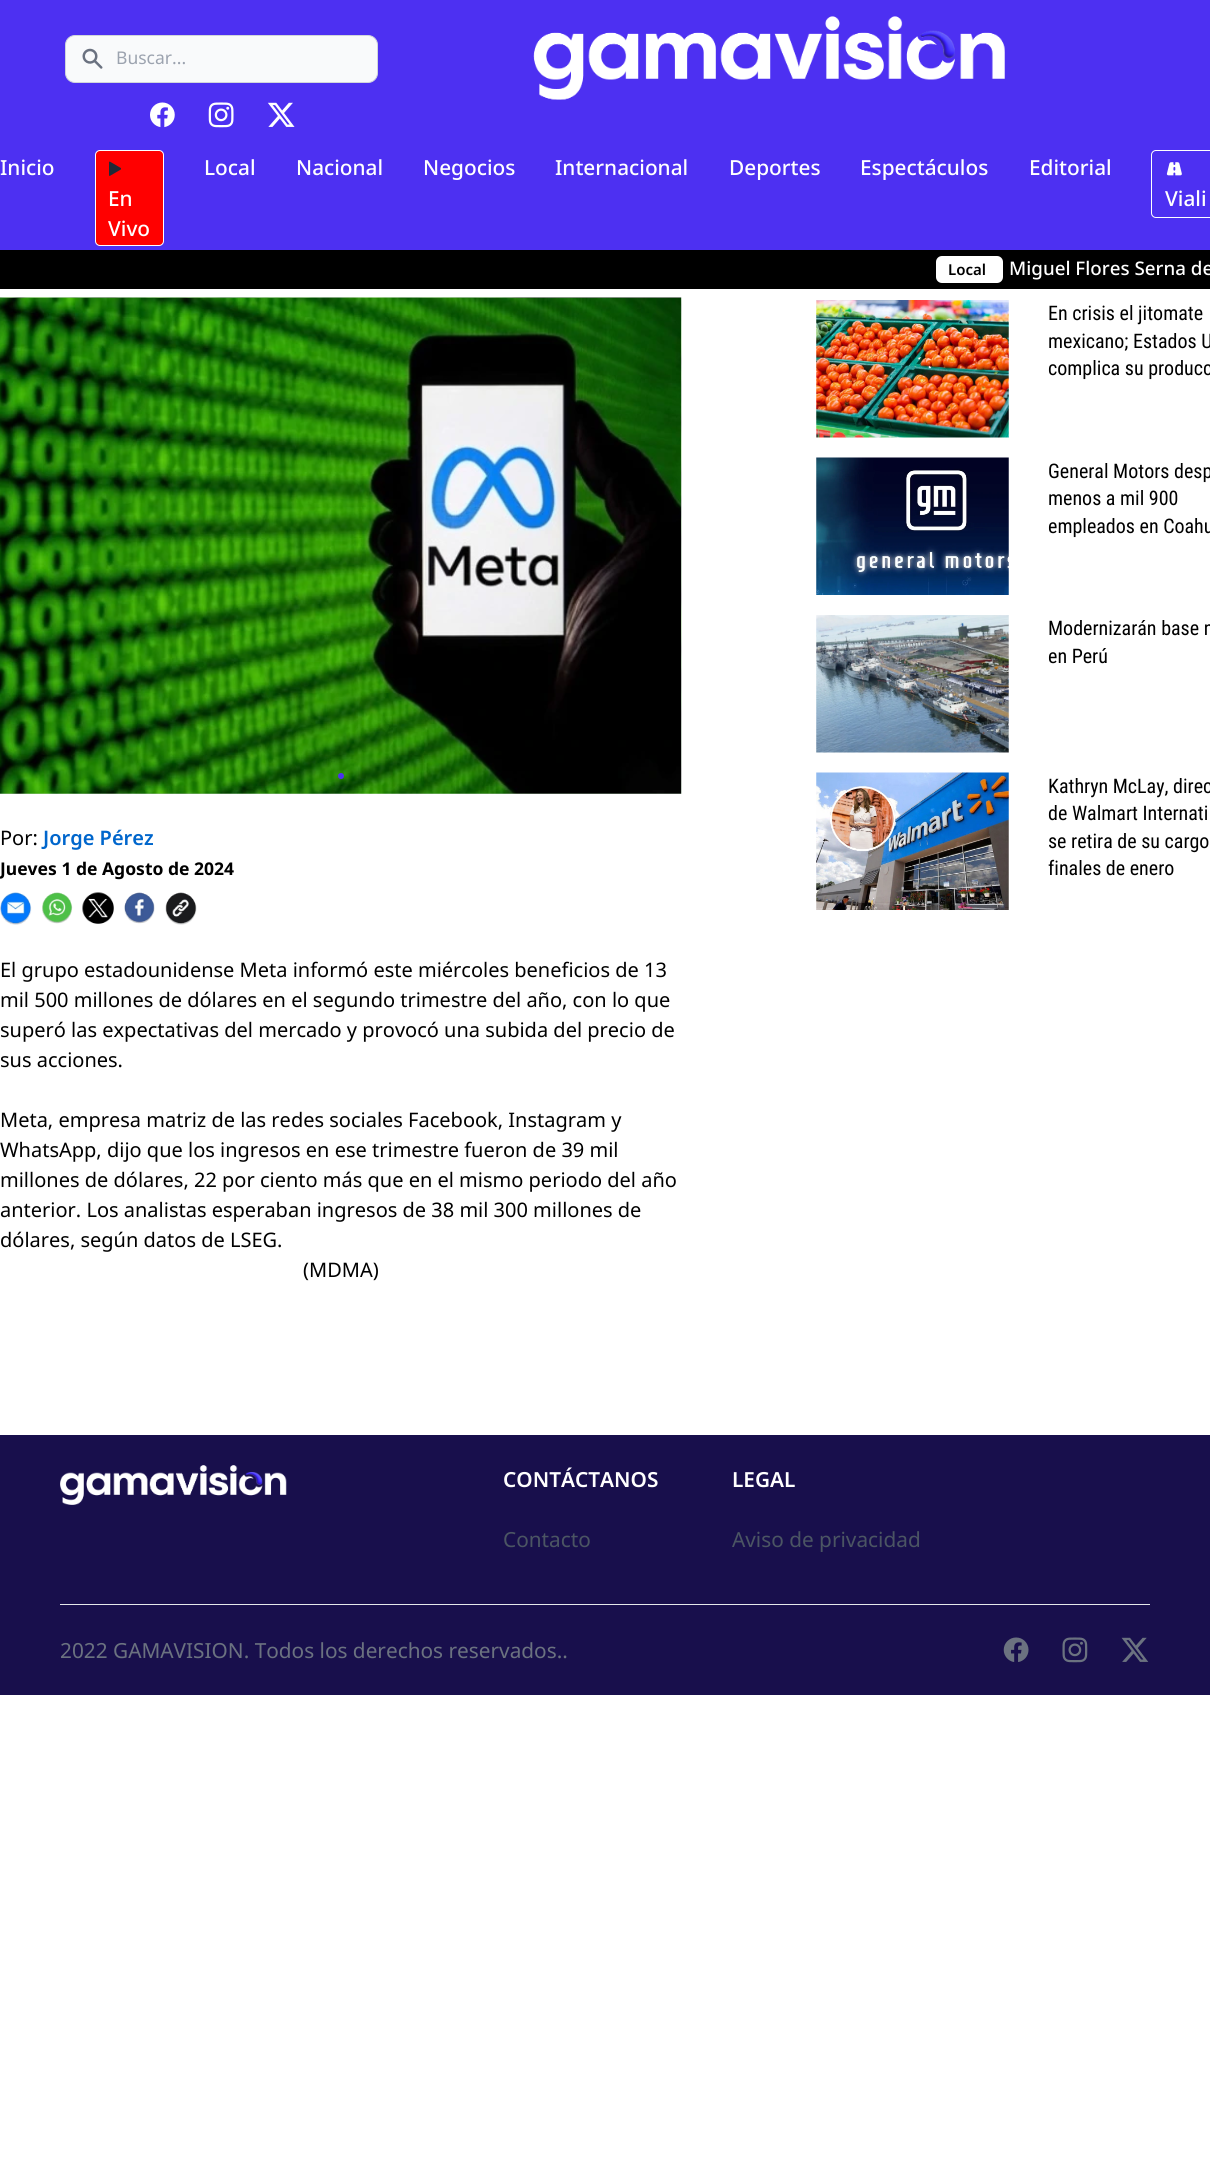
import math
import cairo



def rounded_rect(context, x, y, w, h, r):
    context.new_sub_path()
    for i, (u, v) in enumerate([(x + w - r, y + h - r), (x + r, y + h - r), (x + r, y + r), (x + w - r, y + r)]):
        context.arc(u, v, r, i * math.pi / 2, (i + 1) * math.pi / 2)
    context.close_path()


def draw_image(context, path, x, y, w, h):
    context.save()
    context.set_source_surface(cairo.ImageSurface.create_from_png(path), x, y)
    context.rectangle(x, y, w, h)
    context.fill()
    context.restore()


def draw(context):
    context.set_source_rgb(1, 1, 1)
    context.paint()
    context.set_source_rgb(77 / 255, 48 / 255, 242 / 255)
    context.rectangle(0, 0, 1210, 250)
    context.fill()
    context.set_source_rgb(249 / 255, 250 / 255, 251 / 255)
    rounded_rect(context, 65.5, 35.5, 312, 47, 9.5)
    context.fill_preserve()
    context.set_source_rgb(209 / 255, 213 / 255, 219 / 255)
    context.set_line_width(1)
    context.stroke()
    draw_image(context, "images/1.png", 82, 48, 21, 21)
    draw_image(context, "images/2.png", 533, 16, 472, 84)
    draw_image(context, "images/3.png", 150, 102, 25, 26)
    draw_image(context, "images/4.png", 208, 102, 26, 26)
    draw_image(context, "images/5.png", 267, 102, 28, 25)
    context.set_source_rgb(1, 0, 0)
    rounded_rect(context, 95.5, 150.5, 68, 95, 4.5)
    context.fill_preserve()
    context.set_source_rgb(1, 1, 1)
    context.stroke()
    draw_image(context, "images/6.png", 109, 161, 12, 15)
    rounded_rect(context, 1151.5, 150.5, 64, 67, 4.5)
    context.stroke()
    draw_image(context, "images/7.png", 1166, 162, 16, 14)
    context.set_source_rgb(0, 0, 0)
    context.rectangle(0, 250, 1210, 39)
    context.fill()
    context.set_source_rgb(1, 1, 1)
    rounded_rect(context, 936, 256, 67, 27, 6)
    context.fill()
    draw_image(context, "images/8.png", 816, 300, 193, 138)
    draw_image(context, "images/9.png", 816, 457, 193, 138)
    draw_image(context, "images/10.png", 816, 615, 193, 138)
    draw_image(context, "images/11.png", 816, 772, 193, 138)
    draw_image(context, "images/12.png", 0, 297, 682, 497)
    draw_image(context, "images/13.png", 681, 297, 1, 497)
    context.set_source_rgb(77 / 255, 48 / 255, 242 / 255)
    context.arc(341, 776, 3, 0, 2 * math.pi)
    context.fill()
    draw_image(context, "images/14.png", 0, 892, 32, 33)
    draw_image(context, "images/15.png", 42, 892, 31, 32)
    draw_image(context, "images/16.png", 82, 892, 32, 32)
    draw_image(context, "images/17.png", 124, 892, 31, 32)
    draw_image(context, "images/18.png", 165, 892, 32, 33)
    context.set_source_rgb(24 / 255, 15 / 255, 76 / 255)
    context.rectangle(0, 1435, 1210, 260)
    context.fill()
    draw_image(context, "images/19.png", 60, 1465, 227, 40)
    context.set_source_rgb(229 / 255, 231 / 255, 235 / 255)
    context.rectangle(60, 1604, 1090, 1)
    context.fill()
    draw_image(context, "images/20.png", 1003, 1637, 26, 25)
    draw_image(context, "images/21.png", 1062, 1637, 26, 26)
    draw_image(context, "images/22.png", 1121, 1637, 28, 25)
    context.select_font_face("Noto Sans")
    context.set_font_size(17.5)
    context.set_source_rgb(156 / 255, 163 / 255, 175 / 255)
    context.move_to(116, 64)
    context.show_text("Buscar...")
    context.select_font_face("Noto Sans Medium")
    context.set_font_size(20.8)
    context.set_source_rgb(1, 1, 1)
    context.move_to(0, 175)
    context.show_text("Inicio")
    context.move_to(204, 175)
    context.show_text("Local")
    context.move_to(296, 175)
    context.show_text("Nacional")
    context.move_to(423, 175)
    context.show_text("Negocios")
    context.move_to(555, 175)
    context.show_text("Internacional")
    context.move_to(729, 175)
    context.show_text("Deportes")
    context.move_to(860, 175)
    context.show_text("Espectáculos")
    context.move_to(1029, 175)
    context.show_text("Editorial")
    context.move_to(108, 206)
    context.show_text("En")
    context.move_to(108, 236)
    context.show_text("Vivo")
    context.move_to(1165, 206)
    context.show_text("Viali")
    context.select_font_face("Noto Sans SemiBold")
    context.set_font_size(15)
    context.set_source_rgb(0, 0, 0)
    context.move_to(948, 275)
    context.show_text("Local")
    context.select_font_face("Noto Sans Medium")
    context.set_font_size(18.75)
    context.set_source_rgb(1, 1, 1)
    context.move_to(1009, 275)
    context.show_text("Miguel Flores Serna de")
    context.select_font_face("Roboto Condensed")
    context.set_font_size(20)
    context.set_source_rgb(0, 0, 0)
    context.move_to(1048, 320)
    context.show_text("En crisis el jitomate")
    context.move_to(1048, 348)
    context.show_text("mexicano; Estados U")
    context.move_to(1048, 375)
    context.show_text("complica su producc")
    context.move_to(1048, 478)
    context.show_text("General Motors desp")
    context.move_to(1048, 505)
    context.show_text("menos a mil 900")
    context.move_to(1048, 533)
    context.show_text("empleados en Coahu")
    context.move_to(1048, 635)
    context.show_text("Modernizarán base n")
    context.move_to(1048, 663)
    context.show_text("en Perú")
    context.move_to(1048, 793)
    context.show_text("Kathryn McLay, direc")
    context.move_to(1048, 820)
    context.show_text("de Walmart Internati")
    context.move_to(1048, 848)
    context.show_text("se retira de su cargo")
    context.move_to(1048, 875)
    context.show_text("finales de enero")
    context.select_font_face("Noto Sans")
    context.move_to(0, 845)
    context.show_text("Por:")
    context.select_font_face("Noto Sans SemiBold")
    context.set_source_rgb(0, 102 / 255, 204 / 255)
    context.move_to(43, 845)
    context.show_text("Jorge Pérez")
    context.select_font_face("Noto Sans", cairo.FontSlant.NORMAL, cairo.FontWeight.BOLD)
    context.set_font_size(17.5)
    context.set_source_rgb(0, 0, 0)
    context.move_to(0, 875)
    context.show_text("Jueves 1 de Agosto de 2024")
    context.select_font_face("Noto Sans")
    context.set_font_size(20)
    context.move_to(0, 977)
    context.show_text("El grupo estadounidense Meta informó este miércoles beneficios de 13")
    context.move_to(0, 1007)
    context.show_text("mil 500 millones de dólares en el segundo trimestre del año, con lo que")
    context.move_to(0, 1037)
    context.show_text("superó las expectativas del mercado y provocó una subida del precio de")
    context.move_to(0, 1067)
    context.show_text("sus acciones.")
    context.move_to(0, 1127)
    context.show_text("Meta, empresa matriz de las redes sociales Facebook, Instagram y")
    context.move_to(0, 1157)
    context.show_text("WhatsApp, dijo que los ingresos en ese trimestre fueron de 39 mil")
    context.move_to(0, 1187)
    context.show_text("millones de dólares, 22 por ciento más que en el mismo periodo del año")
    context.move_to(0, 1217)
    context.show_text("anterior. Los analistas esperaban ingresos de 38 mil 300 millones de")
    context.move_to(0, 1247)
    context.show_text("dólares, según datos de LSEG.")
    context.move_to(303, 1277)
    context.show_text("(MDMA)")
    context.select_font_face("Noto Sans SemiBold")
    context.set_font_size(20.8)
    context.set_source_rgb(1, 1, 1)
    context.move_to(503, 1487)
    context.show_text("CONTÁCTANOS")
    context.select_font_face("Noto Sans")
    context.set_source_rgb(75 / 255, 85 / 255, 99 / 255)
    context.move_to(503, 1547)
    context.show_text("Contacto")
    context.select_font_face("Noto Sans SemiBold")
    context.set_source_rgb(1, 1, 1)
    context.move_to(732, 1487)
    context.show_text("LEGAL")
    context.select_font_face("Noto Sans")
    context.set_source_rgb(75 / 255, 85 / 255, 99 / 255)
    context.move_to(732, 1547)
    context.show_text("Aviso de privacidad")
    context.set_source_rgb(107 / 255, 114 / 255, 128 / 255)
    context.move_to(60, 1658)
    context.show_text("2022 GAMAVISION. Todos los derechos reservados..")


surface = cairo.ImageSurface(cairo.Format.RGB24, 1210, 2161)
context = cairo.Context(surface)
options = cairo.FontOptions()
options.set_hint_metrics(cairo.HintMetrics.OFF)
options.set_hint_style(cairo.HintStyle.NONE)
context.set_font_options(options)
context.set_miter_limit(4)
draw(context)
surface.write_to_png("out.png")
